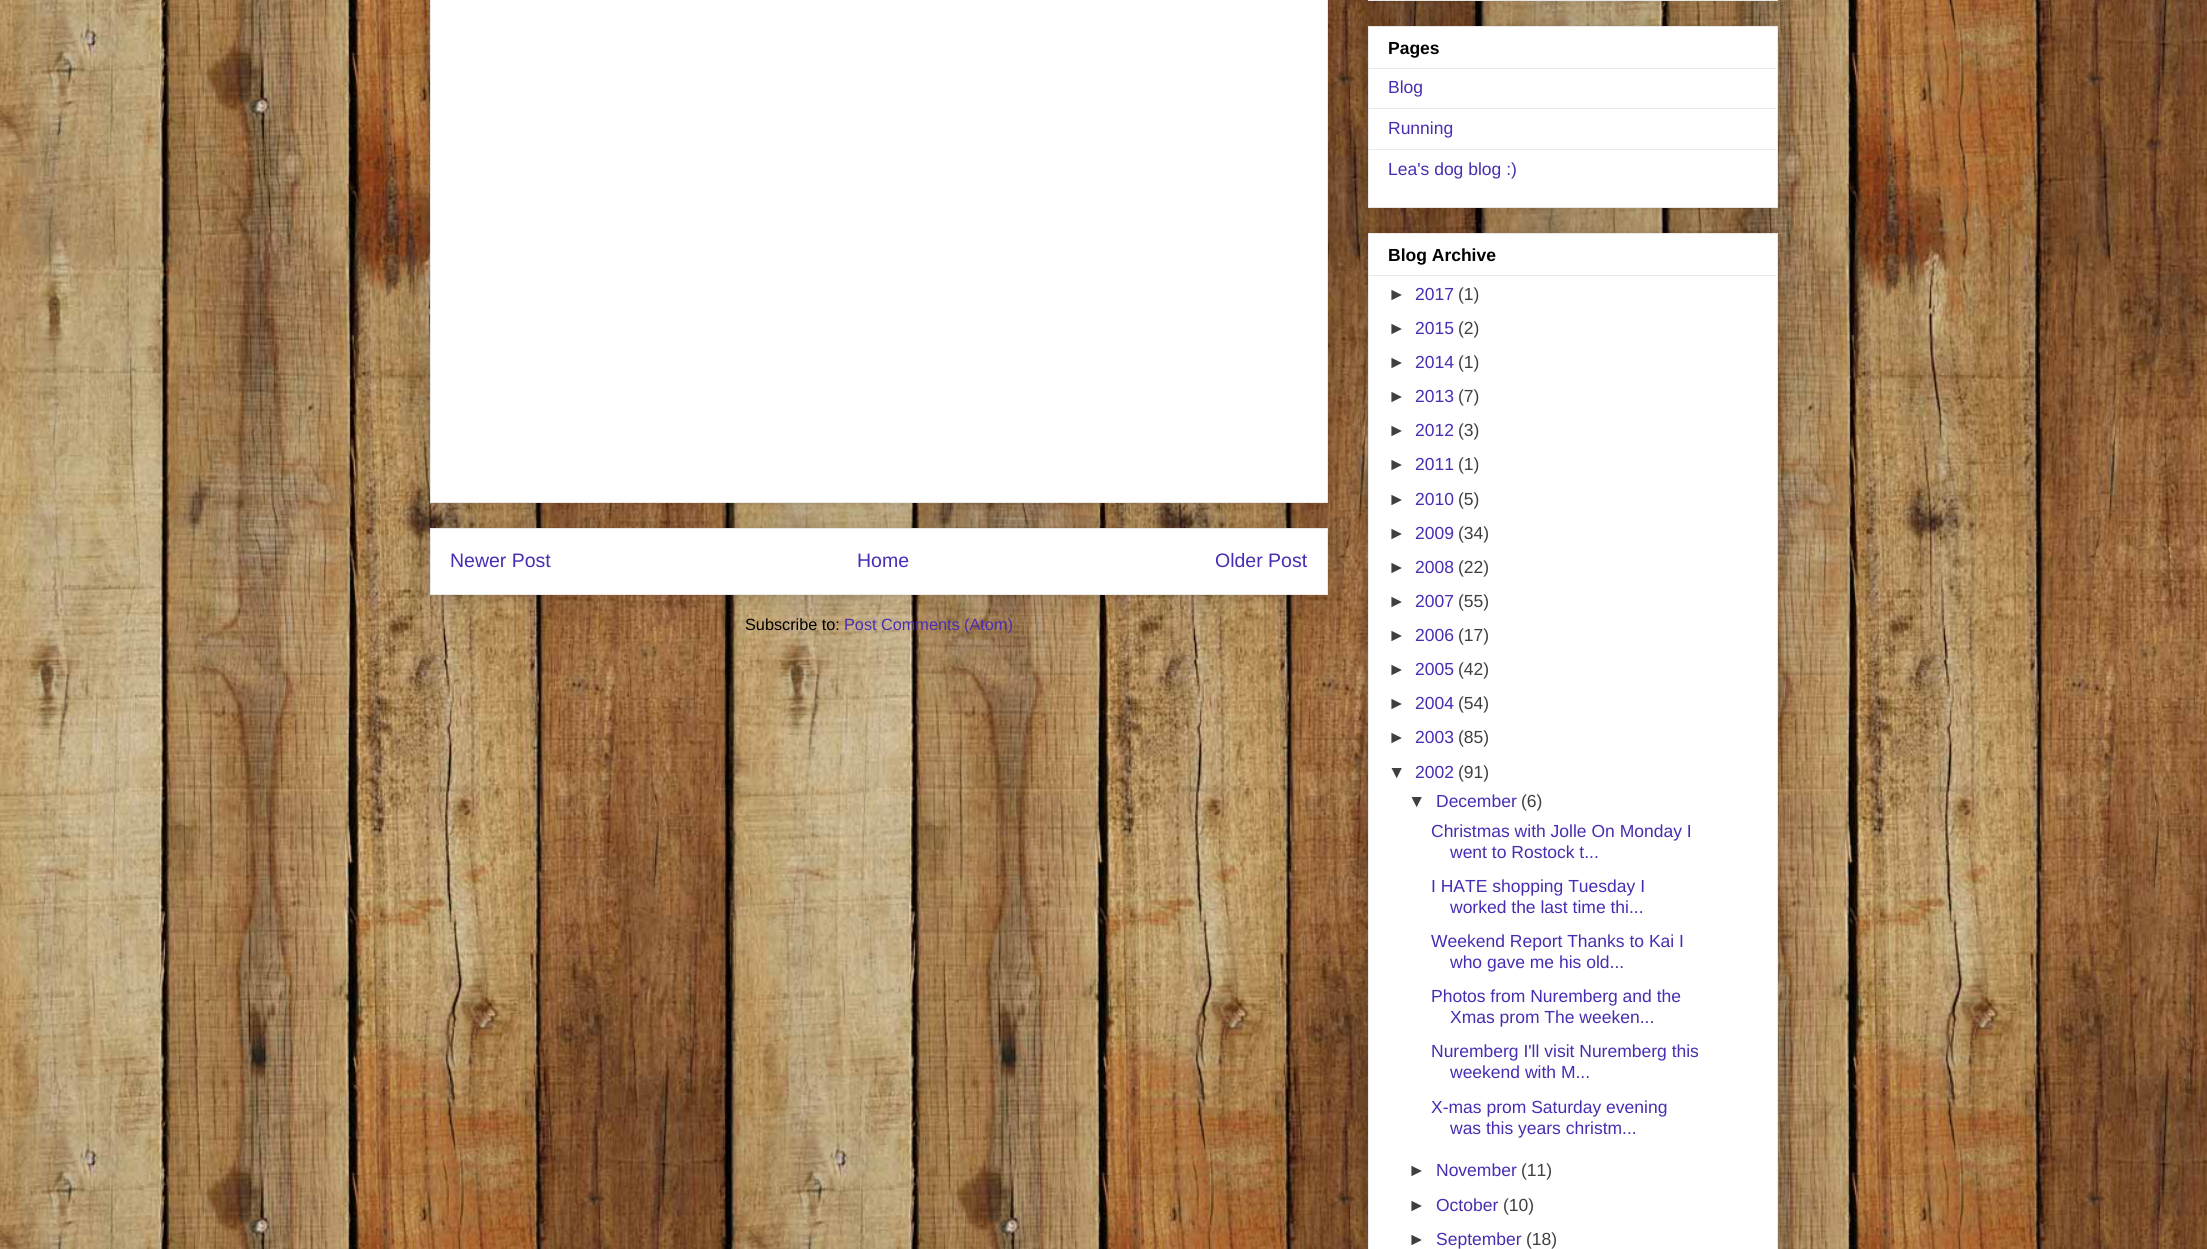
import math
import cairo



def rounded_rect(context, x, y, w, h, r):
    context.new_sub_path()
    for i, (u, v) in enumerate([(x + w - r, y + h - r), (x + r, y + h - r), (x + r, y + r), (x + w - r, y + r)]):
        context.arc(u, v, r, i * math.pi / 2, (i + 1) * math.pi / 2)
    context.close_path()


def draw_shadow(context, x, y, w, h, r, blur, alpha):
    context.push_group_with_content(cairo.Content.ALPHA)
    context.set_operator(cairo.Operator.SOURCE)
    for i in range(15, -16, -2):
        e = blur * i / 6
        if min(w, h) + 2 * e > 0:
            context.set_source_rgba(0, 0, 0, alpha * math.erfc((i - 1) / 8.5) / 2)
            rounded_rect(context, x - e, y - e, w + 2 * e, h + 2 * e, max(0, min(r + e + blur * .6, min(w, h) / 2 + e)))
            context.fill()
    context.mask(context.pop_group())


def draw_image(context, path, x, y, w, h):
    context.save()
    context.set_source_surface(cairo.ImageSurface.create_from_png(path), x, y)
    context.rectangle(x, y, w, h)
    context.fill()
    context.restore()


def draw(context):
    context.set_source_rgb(1, 1, 1)
    context.paint()
    draw_image(context, "images/1.png", 0, 0, 2207, 1249)
    context.set_source_rgb(0, 0, 0)
    draw_shadow(context, 430, 528, 898, 67, 0, 12.5, 0.2)
    context.set_source_rgb(1, 1, 1)
    context.rectangle(430.5, 528.5, 897, 66)
    context.fill_preserve()
    context.set_source_rgb(233 / 255, 233 / 255, 233 / 255)
    context.set_line_width(1)
    context.stroke()
    context.set_source_rgb(0, 0, 0)
    draw_shadow(context, 430, -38, 898, 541, 0, 12.5, 0.2)
    context.set_source_rgb(1, 1, 1)
    context.rectangle(430.5, -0.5, 897, 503)
    context.fill_preserve()
    context.set_source_rgb(233 / 255, 233 / 255, 233 / 255)
    context.stroke()
    context.set_source_rgb(0, 0, 0)
    draw_shadow(context, 1368, -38, 410, 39, 0, 12.5, 0.2)
    context.rectangle(1368.5, -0.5, 409, 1)
    context.set_source_rgb(233 / 255, 233 / 255, 233 / 255)
    context.stroke()
    context.set_source_rgb(0, 0, 0)
    draw_shadow(context, 1368, 26, 410, 182, 0, 12.5, 0.2)
    context.set_source_rgb(1, 1, 1)
    context.rectangle(1368.5, 26.5, 409, 181)
    context.fill_preserve()
    context.set_source_rgb(233 / 255, 233 / 255, 233 / 255)
    context.stroke()
    context.rectangle(1369, 68, 407, 1)
    context.fill()
    context.rectangle(1369, 108, 407, 1)
    context.fill()
    context.rectangle(1369, 149, 407, 1)
    context.fill()
    context.set_source_rgb(0, 0, 0)
    draw_shadow(context, 1368, 233, 410, 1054, 0, 12.5, 0.2)
    context.set_source_rgb(1, 1, 1)
    context.rectangle(1368.5, 233.5, 409, 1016)
    context.fill_preserve()
    context.set_source_rgb(233 / 255, 233 / 255, 233 / 255)
    context.stroke()
    context.rectangle(1369, 275, 407, 1)
    context.fill()
    context.select_font_face("Liberation Sans")
    context.set_font_size(19.5)
    context.set_source_rgb(73 / 255, 44 / 255, 178 / 255)
    context.move_to(450, 567)
    context.show_text("Newer Post")
    context.move_to(857, 567)
    context.show_text("Home")
    context.move_to(1215, 567)
    context.show_text("Older Post")
    context.set_font_size(16.25)
    context.set_source_rgb(0, 0, 0)
    context.move_to(745, 630)
    context.show_text("Subscribe to:")
    context.set_source_rgb(73 / 255, 44 / 255, 178 / 255)
    context.move_to(844, 630)
    context.show_text("Post Comments (Atom)")
    context.select_font_face("Liberation Sans", cairo.FontSlant.NORMAL, cairo.FontWeight.BOLD)
    context.set_font_size(17.5)
    context.set_source_rgb(0, 0, 0)
    context.move_to(1388, 54)
    context.show_text("Pages")
    context.select_font_face("Liberation Sans")
    context.set_source_rgb(73 / 255, 44 / 255, 178 / 255)
    context.move_to(1388, 93)
    context.show_text("Blog")
    context.move_to(1388, 134)
    context.show_text("Running")
    context.move_to(1388, 175)
    context.show_text("Lea's dog blog :)")
    context.select_font_face("Liberation Sans", cairo.FontSlant.NORMAL, cairo.FontWeight.BOLD)
    context.set_source_rgb(0, 0, 0)
    context.move_to(1388, 261)
    context.show_text("Blog Archive")
    context.select_font_face("Liberation Sans")
    context.set_source_rgb(63 / 255, 63 / 255, 63 / 255)
    context.move_to(1388, 300)
    context.show_text("►")
    context.set_source_rgb(73 / 255, 44 / 255, 178 / 255)
    context.move_to(1415, 300)
    context.show_text("2017")
    context.set_source_rgb(63 / 255, 63 / 255, 63 / 255)
    context.move_to(1458, 300)
    context.show_text("(1)")
    context.move_to(1388, 334)
    context.show_text("►")
    context.set_source_rgb(73 / 255, 44 / 255, 178 / 255)
    context.move_to(1415, 334)
    context.show_text("2015")
    context.set_source_rgb(63 / 255, 63 / 255, 63 / 255)
    context.move_to(1458, 334)
    context.show_text("(2)")
    context.move_to(1388, 368)
    context.show_text("►")
    context.set_source_rgb(73 / 255, 44 / 255, 178 / 255)
    context.move_to(1415, 368)
    context.show_text("2014")
    context.set_source_rgb(63 / 255, 63 / 255, 63 / 255)
    context.move_to(1458, 368)
    context.show_text("(1)")
    context.move_to(1388, 402)
    context.show_text("►")
    context.set_source_rgb(73 / 255, 44 / 255, 178 / 255)
    context.move_to(1415, 402)
    context.show_text("2013")
    context.set_source_rgb(63 / 255, 63 / 255, 63 / 255)
    context.move_to(1458, 402)
    context.show_text("(7)")
    context.move_to(1388, 436)
    context.show_text("►")
    context.set_source_rgb(73 / 255, 44 / 255, 178 / 255)
    context.move_to(1415, 436)
    context.show_text("2012")
    context.set_source_rgb(63 / 255, 63 / 255, 63 / 255)
    context.move_to(1458, 436)
    context.show_text("(3)")
    context.move_to(1388, 470)
    context.show_text("►")
    context.set_source_rgb(73 / 255, 44 / 255, 178 / 255)
    context.move_to(1415, 470)
    context.show_text("2011")
    context.set_source_rgb(63 / 255, 63 / 255, 63 / 255)
    context.move_to(1458, 470)
    context.show_text("(1)")
    context.move_to(1388, 505)
    context.show_text("►")
    context.set_source_rgb(73 / 255, 44 / 255, 178 / 255)
    context.move_to(1415, 505)
    context.show_text("2010")
    context.set_source_rgb(63 / 255, 63 / 255, 63 / 255)
    context.move_to(1458, 505)
    context.show_text("(5)")
    context.move_to(1388, 539)
    context.show_text("►")
    context.set_source_rgb(73 / 255, 44 / 255, 178 / 255)
    context.move_to(1415, 539)
    context.show_text("2009")
    context.set_source_rgb(63 / 255, 63 / 255, 63 / 255)
    context.move_to(1458, 539)
    context.show_text("(34)")
    context.move_to(1388, 573)
    context.show_text("►")
    context.set_source_rgb(73 / 255, 44 / 255, 178 / 255)
    context.move_to(1415, 573)
    context.show_text("2008")
    context.set_source_rgb(63 / 255, 63 / 255, 63 / 255)
    context.move_to(1458, 573)
    context.show_text("(22)")
    context.move_to(1388, 607)
    context.show_text("►")
    context.set_source_rgb(73 / 255, 44 / 255, 178 / 255)
    context.move_to(1415, 607)
    context.show_text("2007")
    context.set_source_rgb(63 / 255, 63 / 255, 63 / 255)
    context.move_to(1458, 607)
    context.show_text("(55)")
    context.move_to(1388, 641)
    context.show_text("►")
    context.set_source_rgb(73 / 255, 44 / 255, 178 / 255)
    context.move_to(1415, 641)
    context.show_text("2006")
    context.set_source_rgb(63 / 255, 63 / 255, 63 / 255)
    context.move_to(1458, 641)
    context.show_text("(17)")
    context.move_to(1388, 675)
    context.show_text("►")
    context.set_source_rgb(73 / 255, 44 / 255, 178 / 255)
    context.move_to(1415, 675)
    context.show_text("2005")
    context.set_source_rgb(63 / 255, 63 / 255, 63 / 255)
    context.move_to(1458, 675)
    context.show_text("(42)")
    context.move_to(1388, 709)
    context.show_text("►")
    context.set_source_rgb(73 / 255, 44 / 255, 178 / 255)
    context.move_to(1415, 709)
    context.show_text("2004")
    context.set_source_rgb(63 / 255, 63 / 255, 63 / 255)
    context.move_to(1458, 709)
    context.show_text("(54)")
    context.move_to(1388, 743)
    context.show_text("►")
    context.set_source_rgb(73 / 255, 44 / 255, 178 / 255)
    context.move_to(1415, 743)
    context.show_text("2003")
    context.set_source_rgb(63 / 255, 63 / 255, 63 / 255)
    context.move_to(1458, 743)
    context.show_text("(85)")
    context.move_to(1388, 778)
    context.show_text("▼")
    context.set_source_rgb(73 / 255, 44 / 255, 178 / 255)
    context.move_to(1415, 778)
    context.show_text("2002")
    context.set_source_rgb(63 / 255, 63 / 255, 63 / 255)
    context.move_to(1458, 778)
    context.show_text("(91)")
    context.move_to(1408, 807)
    context.show_text("▼")
    context.set_source_rgb(73 / 255, 44 / 255, 178 / 255)
    context.move_to(1436, 807)
    context.show_text("December")
    context.set_source_rgb(63 / 255, 63 / 255, 63 / 255)
    context.move_to(1521, 807)
    context.show_text("(6)")
    context.set_source_rgb(73 / 255, 44 / 255, 178 / 255)
    context.move_to(1431, 837)
    context.show_text("Christmas with Jolle On Monday I")
    context.move_to(1450, 858)
    context.show_text("went to Rostock t...")
    context.move_to(1431, 892)
    context.show_text("I HATE shopping Tuesday I")
    context.move_to(1450, 913)
    context.show_text("worked the last time thi...")
    context.move_to(1431, 947)
    context.show_text("Weekend Report Thanks to Kai I")
    context.move_to(1450, 968)
    context.show_text("who gave me his old...")
    context.move_to(1431, 1002)
    context.show_text("Photos from Nuremberg and the")
    context.move_to(1450, 1023)
    context.show_text("Xmas prom The weeken...")
    context.move_to(1431, 1057)
    context.show_text("Nuremberg I'll visit Nuremberg this")
    context.move_to(1450, 1078)
    context.show_text("weekend with M...")
    context.move_to(1431, 1113)
    context.show_text("X-mas prom Saturday evening")
    context.move_to(1450, 1134)
    context.show_text("was this years christm...")
    context.set_source_rgb(63 / 255, 63 / 255, 63 / 255)
    context.move_to(1408, 1176)
    context.show_text("►")
    context.set_source_rgb(73 / 255, 44 / 255, 178 / 255)
    context.move_to(1436, 1176)
    context.show_text("November")
    context.set_source_rgb(63 / 255, 63 / 255, 63 / 255)
    context.move_to(1521, 1176)
    context.show_text("(11)")
    context.move_to(1408, 1211)
    context.show_text("►")
    context.set_source_rgb(73 / 255, 44 / 255, 178 / 255)
    context.move_to(1436, 1211)
    context.show_text("October")
    context.set_source_rgb(63 / 255, 63 / 255, 63 / 255)
    context.move_to(1503, 1211)
    context.show_text("(10)")
    context.move_to(1408, 1245)
    context.show_text("►")
    context.set_source_rgb(73 / 255, 44 / 255, 178 / 255)
    context.move_to(1436, 1245)
    context.show_text("September")
    context.set_source_rgb(63 / 255, 63 / 255, 63 / 255)
    context.move_to(1526, 1245)
    context.show_text("(18)")


surface = cairo.ImageSurface(cairo.Format.RGB24, 2207, 1249)
context = cairo.Context(surface)
options = cairo.FontOptions()
options.set_hint_metrics(cairo.HintMetrics.OFF)
options.set_hint_style(cairo.HintStyle.NONE)
context.set_font_options(options)
context.set_miter_limit(4)
draw(context)
surface.write_to_png("out.png")
